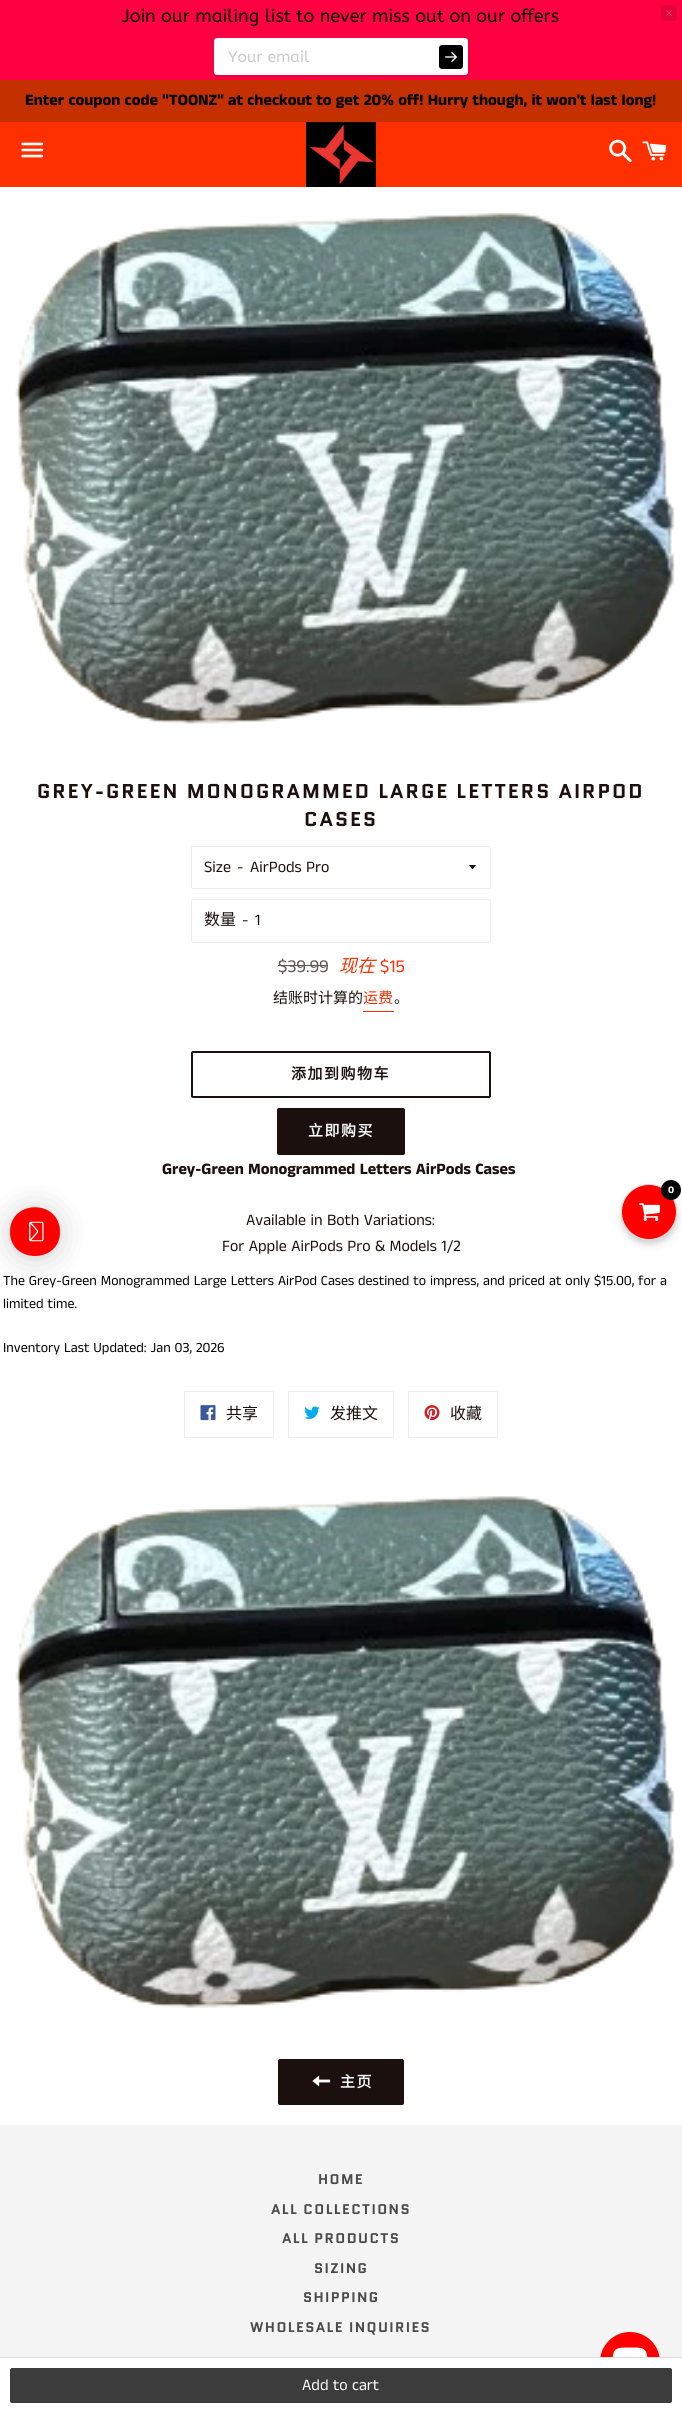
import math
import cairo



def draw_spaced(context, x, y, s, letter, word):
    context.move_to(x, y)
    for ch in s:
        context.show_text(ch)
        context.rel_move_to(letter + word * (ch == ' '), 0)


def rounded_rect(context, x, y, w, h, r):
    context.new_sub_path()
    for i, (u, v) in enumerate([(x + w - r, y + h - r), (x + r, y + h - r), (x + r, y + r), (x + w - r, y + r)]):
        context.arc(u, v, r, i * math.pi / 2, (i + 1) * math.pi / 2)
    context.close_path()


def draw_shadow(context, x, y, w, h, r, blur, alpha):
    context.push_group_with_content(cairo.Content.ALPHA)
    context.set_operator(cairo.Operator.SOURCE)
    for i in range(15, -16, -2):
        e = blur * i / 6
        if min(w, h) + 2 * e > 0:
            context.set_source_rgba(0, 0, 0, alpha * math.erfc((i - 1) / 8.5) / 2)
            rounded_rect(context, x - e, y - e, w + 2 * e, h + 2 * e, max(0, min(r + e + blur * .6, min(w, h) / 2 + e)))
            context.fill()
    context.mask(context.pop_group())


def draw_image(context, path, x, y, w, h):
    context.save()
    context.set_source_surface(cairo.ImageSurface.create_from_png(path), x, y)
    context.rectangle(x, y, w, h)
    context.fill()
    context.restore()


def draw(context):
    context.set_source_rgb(1, 1, 1)
    context.paint()
    context.set_source_rgb(1, 0, 67 / 255)
    context.rectangle(0, 0, 682, 80)
    context.fill()
    context.set_source_rgb(196 / 255, 48 / 255, 0)
    context.rectangle(0, 80, 682, 42)
    context.fill()
    context.set_source_rgb(0, 0, 0)
    draw_shadow(context, 214, 40, 254, 37, 3, 2, 0.1)
    context.set_source_rgb(1, 1, 1)
    rounded_rect(context, 214, 38, 254, 37, 3)
    context.fill()
    context.set_source_rgb(0, 0, 0)
    rounded_rect(context, 439, 45, 24, 24, 3)
    context.fill()
    draw_image(context, "images/1.png", 445, 52, 12, 10)
    context.set_source_rgb(230 / 255, 0, 60 / 255)
    rounded_rect(context, 661, 5, 16, 16, 3)
    context.fill()
    draw_image(context, "images/2.png", 666, 10, 6, 6)
    context.set_source_rgb(1, 48 / 255, 0)
    context.rectangle(0, 122, 682, 65)
    context.fill()
    draw_image(context, "images/3.png", 21, 142, 23, 16)
    draw_image(context, "images/4.png", 306, 122, 70, 65)
    draw_image(context, "images/5.png", 609, 139, 23, 24)
    draw_image(context, "images/6.png", 642, 141, 25, 20)
    draw_image(context, "images/7.png", 15, 213, 660, 511)
    rounded_rect(context, 191.5, 846.5, 299, 42, 1.5)
    context.set_source_rgb(236 / 255, 239 / 255, 241 / 255)
    context.set_line_width(1)
    context.stroke()
    context.set_source_rgb(27 / 255, 16 / 255, 14 / 255)
    context.new_path()
    context.move_to(469, 865)
    context.curve_to(473.5, 870.5, 471.5, 870.5, 476, 865)
    context.close_path()
    context.fill()
    rounded_rect(context, 191.5, 899.5, 299, 43, 1.5)
    context.set_source_rgb(236 / 255, 239 / 255, 241 / 255)
    context.stroke()
    context.set_source_rgb(95 / 255, 88 / 255, 86 / 255)
    context.rectangle(278, 965, 50, 1)
    context.fill()
    context.set_source_rgb(241 / 255, 45 / 255, 0)
    context.rectangle(363, 1011, 31, 1)
    context.fill()
    rounded_rect(context, 192, 1052, 298, 45, 1)
    context.set_source_rgb(27 / 255, 16 / 255, 14 / 255)
    context.set_line_width(2)
    context.stroke()
    rounded_rect(context, 277, 1108, 128, 47, 2)
    context.fill()
    context.rectangle(184.5, 1391.5, 89, 46)
    context.set_source_rgb(236 / 255, 239 / 255, 241 / 255)
    context.set_line_width(1)
    context.stroke()
    draw_image(context, "images/8.png", 200, 1405, 16, 16)
    context.rectangle(288.5, 1391.5, 105, 46)
    context.stroke()
    draw_image(context, "images/9.png", 304, 1406, 16, 13)
    context.rectangle(408.5, 1391.5, 89, 46)
    context.stroke()
    draw_image(context, "images/10.png", 424, 1405, 16, 16)
    draw_image(context, "images/11.png", 15, 1496, 660, 512)
    context.set_source_rgb(27 / 255, 16 / 255, 14 / 255)
    rounded_rect(context, 278, 2059, 126, 46, 2)
    context.fill()
    draw_image(context, "images/12.png", 312, 2075, 19, 12)
    context.set_source_rgb(0, 0, 0)
    draw_shadow(context, 10, 1209, 50, 50, 25, 16, 0.16)
    draw_shadow(context, 10, 1208, 50, 50, 25, 3, 0.06)
    context.set_source_rgb(1, 0, 0)
    context.new_path()
    context.move_to(10, 1232)
    context.curve_to(10, 1199, 60, 1199, 60, 1232)
    context.curve_to(60, 1264, 10, 1264, 10, 1232)
    context.close_path()
    context.fill()
    draw_image(context, "images/13.png", 29, 1221, 15, 21)
    context.set_source_rgb(0, 0, 0)
    draw_shadow(context, 621, 1188, 56, 56, 28, 2, 0.08)
    draw_shadow(context, 622, 1188, 56, 56, 28, 5, 0.12)
    context.set_source_rgb(1, 0, 0)
    context.arc(649, 1212, 27.5, 0, 2 * math.pi)
    context.fill_preserve()
    context.set_source_rgb(221 / 255, 221 / 255, 221 / 255)
    context.stroke()
    context.set_source_rgb(0, 0, 0)
    context.arc(671, 1190, 10, 0, 2 * math.pi)
    context.fill()
    draw_image(context, "images/14.png", 638, 1203, 22, 18)
    context.set_source_rgb(244 / 255, 244 / 255, 244 / 255)
    context.rectangle(0, 2125, 682, 232)
    context.fill()
    context.set_source_rgb(1, 0, 0)
    context.arc(630, 2362, 30, 0, 2 * math.pi)
    context.fill()
    context.set_source_rgb(1, 1, 1)
    context.rectangle(600, 2358, 60, 34)
    context.fill()
    context.set_source_rgb(221 / 255, 221 / 255, 221 / 255)
    context.rectangle(0, 2357, 682, 1)
    context.fill()
    context.set_source_rgb(60 / 255, 60 / 255, 60 / 255)
    rounded_rect(context, 10, 2368, 662, 35, 2)
    context.fill()
    draw_image(context, "images/15.png", 612, 2347, 36, 10)
    context.select_font_face("ABeeZee")
    context.set_font_size(18)
    context.set_source_rgb(0, 0, 0)
    context.move_to(122, 22)
    context.show_text("Join our mailing list to never miss out on our offers")
    context.set_font_size(15.75)
    context.set_source_rgb(203 / 255, 203 / 255, 203 / 255)
    context.move_to(228, 62)
    context.show_text("Your email")
    context.select_font_face("Anek Tamil", cairo.FontSlant.NORMAL, cairo.FontWeight.BOLD)
    context.set_font_size(16)
    context.set_source_rgb(0, 0, 0)
    context.move_to(25, 105)
    context.show_text("Enter coupon code \"TOONZ\" at checkout to get 20% off! Hurry though, it won't last long!")
    context.select_font_face("Quantico", cairo.FontSlant.NORMAL, cairo.FontWeight.BOLD)
    context.set_font_size(20)
    context.set_source_rgb(27 / 255, 16 / 255, 14 / 255)
    draw_spaced(context, 37, 798, "GREY-GREEN MONOGRAMMED LARGE LETTERS AIRPOD", 2, 0)
    draw_spaced(context, 304, 826, "CASES", 2, 0)
    context.select_font_face("Anek Tamil")
    context.set_font_size(16)
    context.move_to(204, 872)
    context.show_text("Size")
    context.move_to(237, 872)
    context.show_text("-")
    context.move_to(250, 872)
    context.show_text("AirPods Pro")
    context.select_font_face("Noto Sans CJK SC")
    context.move_to(204, 925)
    context.show_text("数量")
    context.select_font_face("Anek Tamil")
    context.move_to(242, 925)
    context.show_text("-")
    context.move_to(255, 925)
    context.show_text("1")
    context.set_font_size(18)
    context.set_source_rgb(95 / 255, 88 / 255, 86 / 255)
    context.move_to(278, 972)
    context.show_text("$39.99")
    context.select_font_face("Noto Sans CJK SC", cairo.FontSlant.ITALIC)
    context.set_source_rgb(254 / 255, 47 / 255, 0)
    context.move_to(339, 972)
    context.show_text("现在")
    context.select_font_face("Anek Tamil")
    context.move_to(380, 972)
    context.show_text("$15")
    context.select_font_face("Noto Sans CJK SC")
    context.set_font_size(15)
    context.set_source_rgb(27 / 255, 16 / 255, 14 / 255)
    context.move_to(273, 1003)
    context.show_text("结账时计算的")
    context.set_source_rgb(241 / 255, 45 / 255, 0)
    context.move_to(363, 1003)
    context.show_text("运费")
    context.set_source_rgb(27 / 255, 16 / 255, 14 / 255)
    context.move_to(394, 1003)
    context.show_text("。")
    context.select_font_face("Noto Sans CJK SC", cairo.FontSlant.NORMAL, cairo.FontWeight.BOLD)
    draw_spaced(context, 291, 1079, "添加到购物车", 1.5, 0)
    context.set_source_rgb(1, 1, 1)
    draw_spaced(context, 308, 1136, "立即购买", 1.5, 0)
    context.select_font_face("Anek Tamil", cairo.FontSlant.NORMAL, cairo.FontWeight.BOLD)
    context.set_font_size(16)
    context.set_source_rgb(27 / 255, 16 / 255, 14 / 255)
    context.move_to(162, 1174)
    context.show_text("Grey-Green Monogrammed Letters AirPods Cases")
    context.select_font_face("Anek Tamil")
    context.move_to(246, 1225)
    context.show_text("Available in Both Variations:")
    context.move_to(222, 1251)
    context.show_text("For Apple AirPods Pro & Models 1/2")
    context.set_font_size(14)
    context.set_source_rgb(0, 0, 0)
    context.move_to(3, 1285)
    context.show_text("The Grey-Green Monogrammed Large Letters AirPod Cases destined to impress, and priced at only $15.00, for a")
    context.move_to(3, 1308)
    context.show_text("limited time.")
    context.move_to(3, 1352)
    context.show_text("Inventory Last Updated: Jan 03, 2026")
    context.select_font_face("Noto Sans CJK SC")
    context.set_font_size(16)
    context.set_source_rgb(27 / 255, 16 / 255, 14 / 255)
    context.move_to(226, 1419)
    context.show_text("共享")
    context.move_to(330, 1419)
    context.show_text("发推文")
    context.move_to(450, 1419)
    context.show_text("收藏")
    context.select_font_face("Noto Sans CJK SC", cairo.FontSlant.NORMAL, cairo.FontWeight.BOLD)
    context.set_font_size(15)
    context.set_source_rgb(1, 1, 1)
    draw_spaced(context, 340, 2087, "主页", 1.5, 0)
    context.select_font_face("Anek Tamil", cairo.FontSlant.NORMAL, cairo.FontWeight.BOLD)
    context.set_font_size(10)
    context.move_to(668, 1193)
    context.show_text("0")
    context.select_font_face("Anek Tamil")
    context.set_font_size(16)
    context.move_to(302, 2390)
    context.show_text("Add to cart")
    context.select_font_face("Quantico", cairo.FontSlant.NORMAL, cairo.FontWeight.BOLD)
    context.set_font_size(14)
    context.set_source_rgb(74 / 255, 74 / 255, 74 / 255)
    draw_spaced(context, 318, 2184, "HOME", 1.4, 0)
    draw_spaced(context, 271, 2214, "ALL COLLECTIONS", 1.4, 0)
    draw_spaced(context, 282, 2243, "ALL PRODUCTS", 1.4, 0)
    draw_spaced(context, 314, 2273, "SIZING", 1.4, 0)
    draw_spaced(context, 303, 2302, "SHIPPING", 1.4, 0)
    draw_spaced(context, 250, 2332, "WHOLESALE INQUIRIES", 1.4, 0)


surface = cairo.ImageSurface(cairo.Format.RGB24, 682, 2413)
context = cairo.Context(surface)
options = cairo.FontOptions()
options.set_hint_metrics(cairo.HintMetrics.OFF)
options.set_hint_style(cairo.HintStyle.NONE)
context.set_font_options(options)
context.set_miter_limit(4)
draw(context)
surface.write_to_png("out.png")
